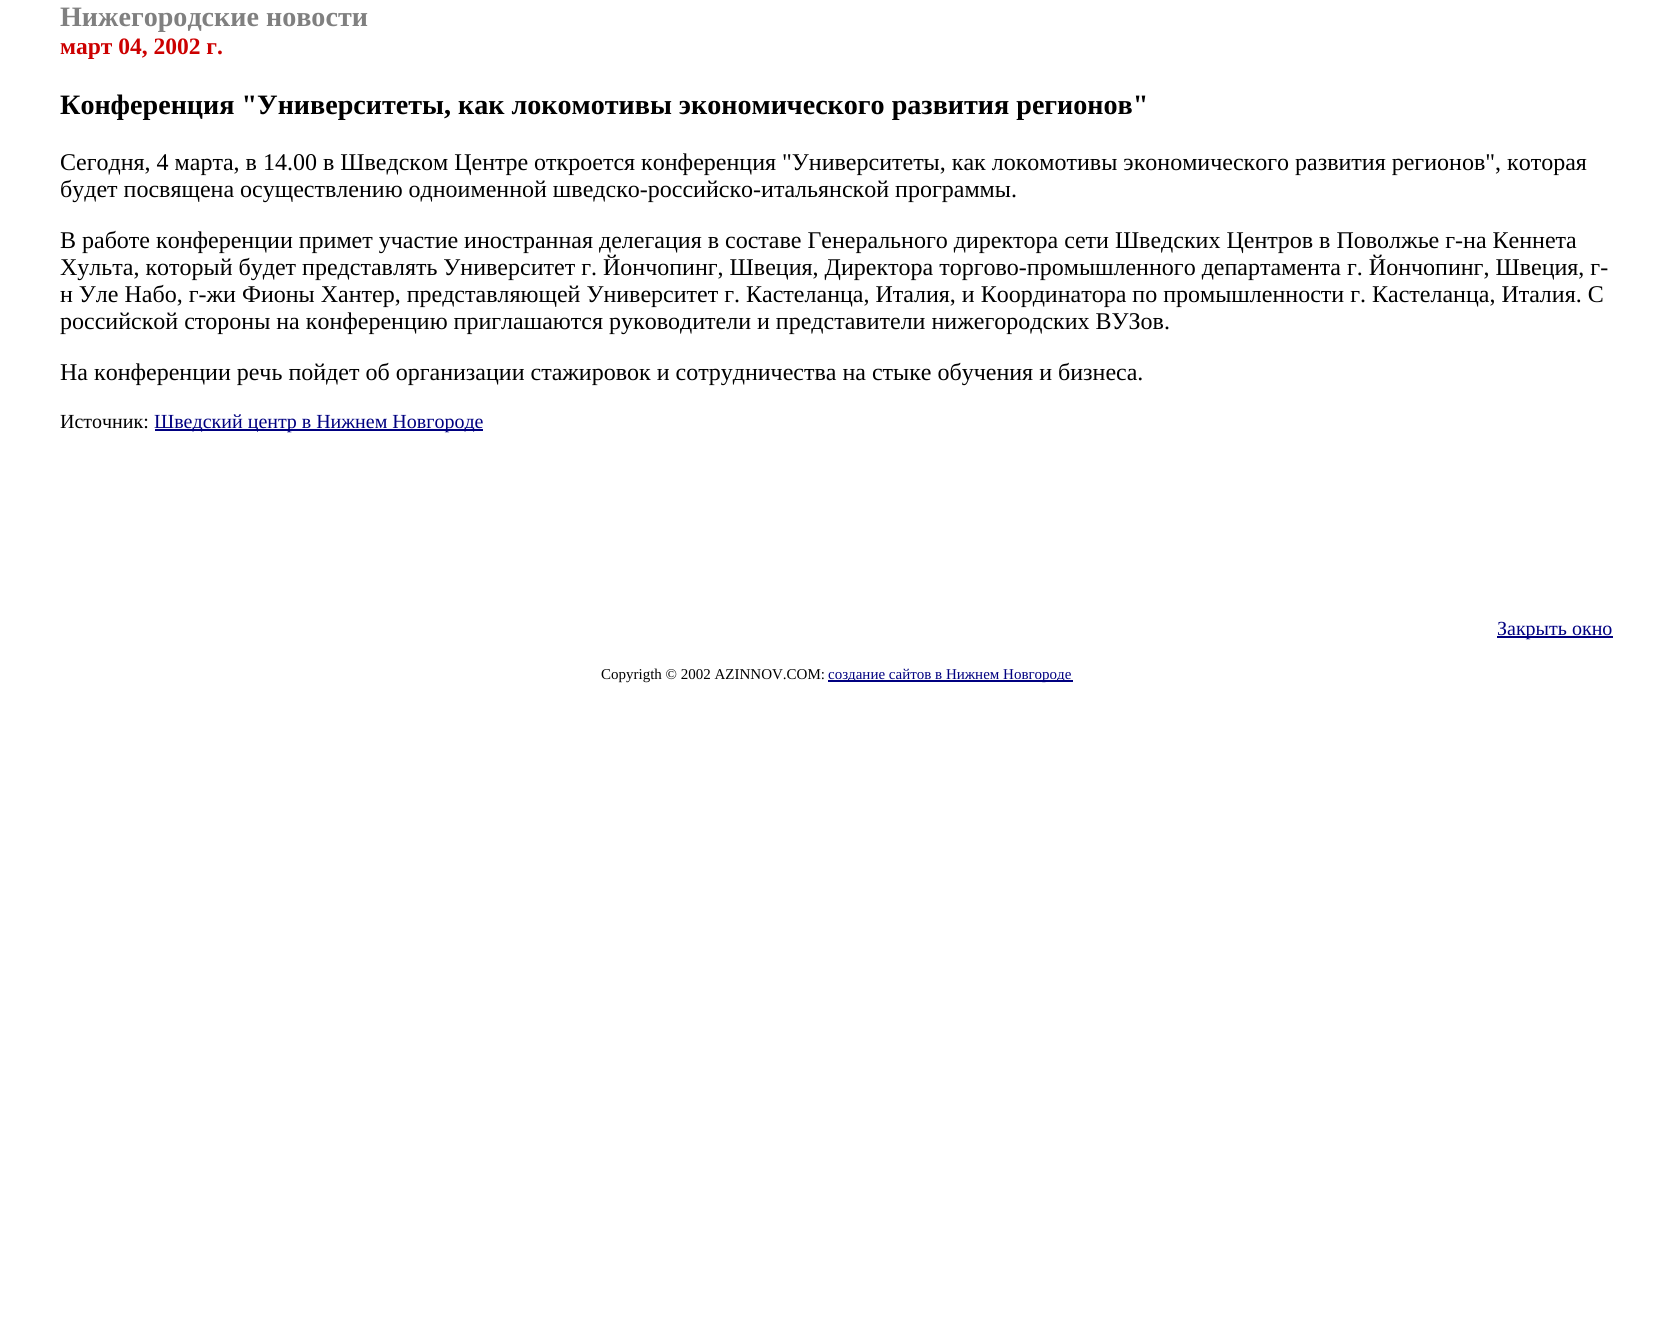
import math
import cairo



def draw(context):
    context.set_source_rgb(1, 1, 1)
    context.paint()
    context.set_source_rgb(0, 0, 128 / 255)
    context.rectangle(155, 429, 328, 2)
    context.fill()
    context.rectangle(1497, 636, 116, 2)
    context.fill()
    context.rectangle(828, 680, 245, 2)
    context.fill()
    context.select_font_face("Liberation Serif", cairo.FontSlant.NORMAL, cairo.FontWeight.BOLD)
    context.set_font_size(28.1)
    context.set_source_rgb(128 / 255, 128 / 255, 128 / 255)
    context.move_to(60, 26)
    context.show_text("Нижегородские новости")
    context.set_font_size(23.5)
    context.set_source_rgb(204 / 255, 0, 0)
    context.move_to(60, 54)
    context.show_text("март 04, 2002 г.")
    context.set_font_size(28.1)
    context.set_source_rgb(0, 0, 0)
    context.move_to(60, 114)
    context.show_text("Конференция \"Университеты, как локомотивы экономического развития регионов\"")
    context.select_font_face("Liberation Serif")
    context.set_font_size(24)
    context.move_to(60, 170)
    context.show_text("Сегодня, 4 марта, в 14.00 в Шведском Центре откроется конференция \"Университеты, как локомотивы экономического развития регионов\", которая")
    context.move_to(60, 197)
    context.show_text("будет посвящена осуществлению одноименной шведско-российско-итальянской программы.")
    context.move_to(60, 248)
    context.show_text("В работе конференции примет участие иностранная делегация в составе Генерального директора сети Шведских Центров в Поволжье г-на Кеннета")
    context.move_to(60, 275)
    context.show_text("Хульта, который будет представлять Университет г. Йончопинг, Швеция, Директора торгово-промышленного департамента г. Йончопинг, Швеция, г-")
    context.move_to(60, 302)
    context.show_text("н Уле Набо, г-жи Фионы Хантер, представляющей Университет г. Кастеланца, Италия, и Координатора по промышленности г. Кастеланца, Италия. С")
    context.move_to(60, 329)
    context.show_text("российской стороны на конференцию приглашаются руководители и представители нижегородских ВУЗов.")
    context.move_to(60, 380)
    context.show_text("На конференции речь пойдет об организации стажировок и сотрудничества на стыке обучения и бизнеса.")
    context.set_font_size(20)
    context.move_to(60, 428)
    context.show_text("Источник:")
    context.set_source_rgb(0, 0, 128 / 255)
    context.move_to(154, 428)
    context.show_text("Шведский центр в Нижнем Новгороде")
    context.move_to(1497, 635)
    context.show_text("Закрыть окно")
    context.set_font_size(15)
    context.set_source_rgb(0, 0, 0)
    context.move_to(601, 679)
    context.show_text("Copyrigth © 2002 AZINNOV.COM:")
    context.set_source_rgb(0, 0, 128 / 255)
    context.move_to(828, 679)
    context.show_text("создание сайтов в Нижнем Новгороде")


surface = cairo.ImageSurface(cairo.Format.RGB24, 1672, 1325)
context = cairo.Context(surface)
options = cairo.FontOptions()
options.set_hint_metrics(cairo.HintMetrics.OFF)
options.set_hint_style(cairo.HintStyle.NONE)
context.set_font_options(options)
context.set_miter_limit(4)
draw(context)
surface.write_to_png("out.png")
